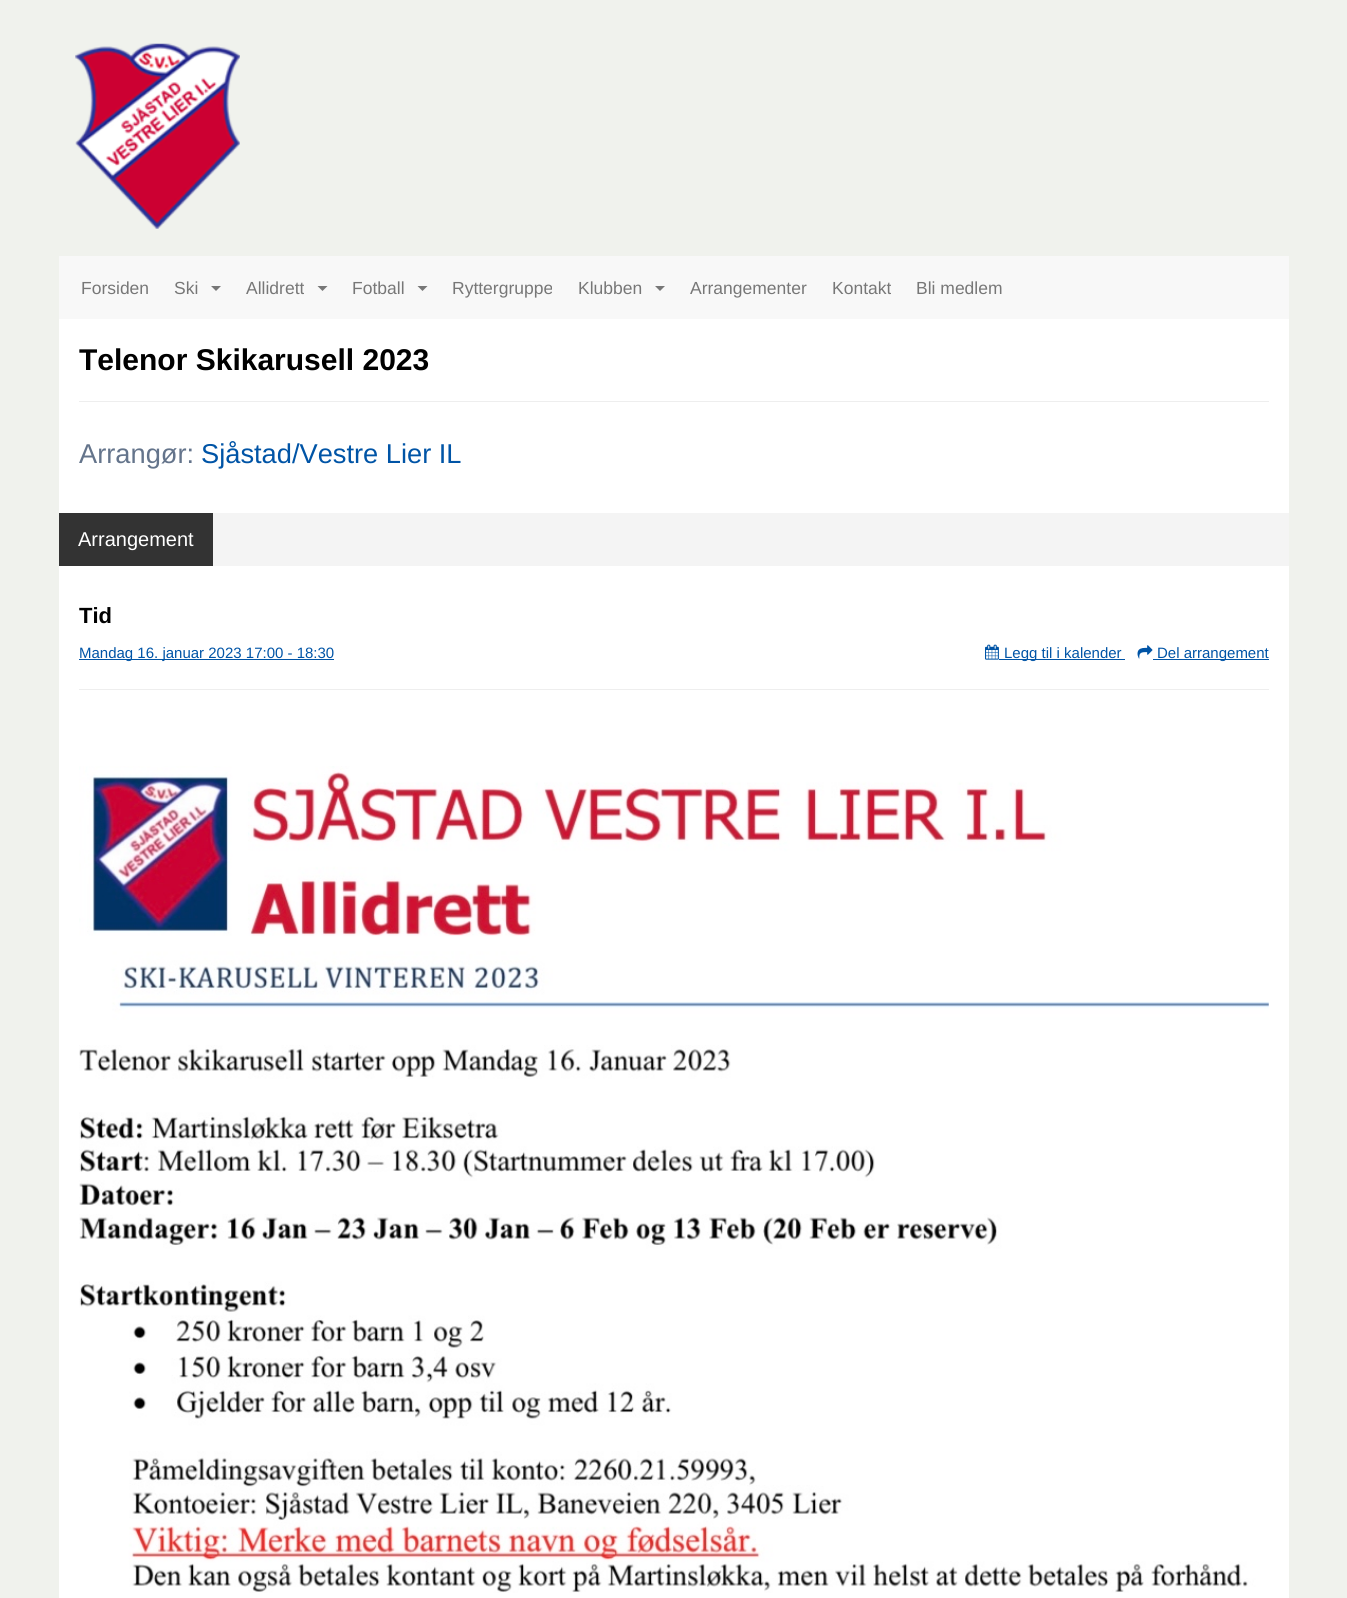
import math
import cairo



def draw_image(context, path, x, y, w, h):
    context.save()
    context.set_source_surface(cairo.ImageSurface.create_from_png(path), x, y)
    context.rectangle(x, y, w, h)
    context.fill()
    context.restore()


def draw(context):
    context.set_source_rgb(240 / 255, 242 / 255, 237 / 255)
    context.paint()
    draw_image(context, "images/1.png", 75, 43, 165, 186)
    context.set_source_rgb(248 / 255, 248 / 255, 248 / 255)
    context.rectangle(59, 256, 1230, 63)
    context.fill()
    context.set_source_rgb(119 / 255, 119 / 255, 119 / 255)
    context.new_path()
    context.move_to(211, 286)
    context.line_to(221, 286)
    context.line_to(216, 291)
    context.close_path()
    context.fill()
    context.new_path()
    context.move_to(317.5, 286)
    context.line_to(327.5, 286)
    context.line_to(322.5, 291)
    context.close_path()
    context.fill()
    context.new_path()
    context.move_to(417.5, 286)
    context.line_to(427.5, 286)
    context.line_to(422.5, 291)
    context.close_path()
    context.fill()
    context.new_path()
    context.move_to(655, 286)
    context.line_to(665, 286)
    context.line_to(660, 291)
    context.close_path()
    context.fill()
    context.set_source_rgb(1, 1, 1)
    context.rectangle(59, 319, 1230, 1279)
    context.fill()
    context.set_source_rgb(238 / 255, 238 / 255, 238 / 255)
    context.rectangle(79, 401, 1190, 1)
    context.fill()
    context.set_source_rgb(244 / 255, 244 / 255, 244 / 255)
    context.rectangle(213, 513, 1076, 53)
    context.fill()
    context.set_source_rgb(51 / 255, 51 / 255, 51 / 255)
    context.rectangle(59, 513, 154, 53)
    context.fill()
    context.set_source_rgb(0, 84 / 255, 166 / 255)
    context.rectangle(79, 659, 255, 1)
    context.fill()
    draw_image(context, "images/2.png", 985, 644, 14, 16)
    context.rectangle(999, 659, 126, 1)
    context.fill()
    draw_image(context, "images/3.png", 1137, 645, 16, 14)
    context.rectangle(1153, 659, 116, 1)
    context.fill()
    context.set_source_rgb(238 / 255, 238 / 255, 238 / 255)
    context.rectangle(79, 689, 1190, 1)
    context.fill()
    draw_image(context, "images/4.png", 79, 766, 1190, 827)
    context.select_font_face("Liberation Sans")
    context.set_font_size(17.5)
    context.set_source_rgb(119 / 255, 119 / 255, 119 / 255)
    context.move_to(81, 294)
    context.show_text("Forsiden")
    context.move_to(174, 294)
    context.show_text("Ski")
    context.move_to(246, 294)
    context.show_text("Allidrett")
    context.move_to(352, 294)
    context.show_text("Fotball")
    context.move_to(452, 294)
    context.show_text("Ryttergruppe")
    context.move_to(578, 294)
    context.show_text("Klubben")
    context.move_to(690, 294)
    context.show_text("Arrangementer")
    context.move_to(832, 294)
    context.show_text("Kontakt")
    context.move_to(916, 294)
    context.show_text("Bli medlem")
    context.select_font_face("Liberation Sans", cairo.FontSlant.NORMAL, cairo.FontWeight.BOLD)
    context.set_font_size(30)
    context.set_source_rgb(0, 0, 0)
    context.move_to(79, 370)
    context.show_text("Telenor Skikarusell 2023")
    context.select_font_face("Liberation Sans")
    context.set_font_size(27.25)
    context.set_source_rgb(100 / 255, 116 / 255, 139 / 255)
    context.move_to(79, 463)
    context.show_text("Arrangør:")
    context.set_source_rgb(0, 84 / 255, 166 / 255)
    context.move_to(201, 463)
    context.show_text("Sjåstad/Vestre Lier IL")
    context.set_font_size(20)
    context.set_source_rgb(1, 1, 1)
    context.move_to(78, 546)
    context.show_text("Arrangement")
    context.select_font_face("Liberation Sans", cairo.FontSlant.NORMAL, cairo.FontWeight.BOLD)
    context.set_font_size(22)
    context.set_source_rgb(0, 0, 0)
    context.move_to(79, 623)
    context.show_text("Tid")
    context.select_font_face("Liberation Sans")
    context.set_font_size(15)
    context.set_source_rgb(0, 84 / 255, 166 / 255)
    context.move_to(79, 658)
    context.show_text("Mandag 16. januar 2023 17:00 - 18:30")
    context.move_to(1004, 658)
    context.show_text("Legg til i kalender")
    context.move_to(1157, 658)
    context.show_text("Del arrangement")


surface = cairo.ImageSurface(cairo.Format.RGB24, 1347, 1598)
context = cairo.Context(surface)
options = cairo.FontOptions()
options.set_hint_metrics(cairo.HintMetrics.OFF)
options.set_hint_style(cairo.HintStyle.NONE)
context.set_font_options(options)
context.set_miter_limit(4)
draw(context)
surface.write_to_png("out.png")
